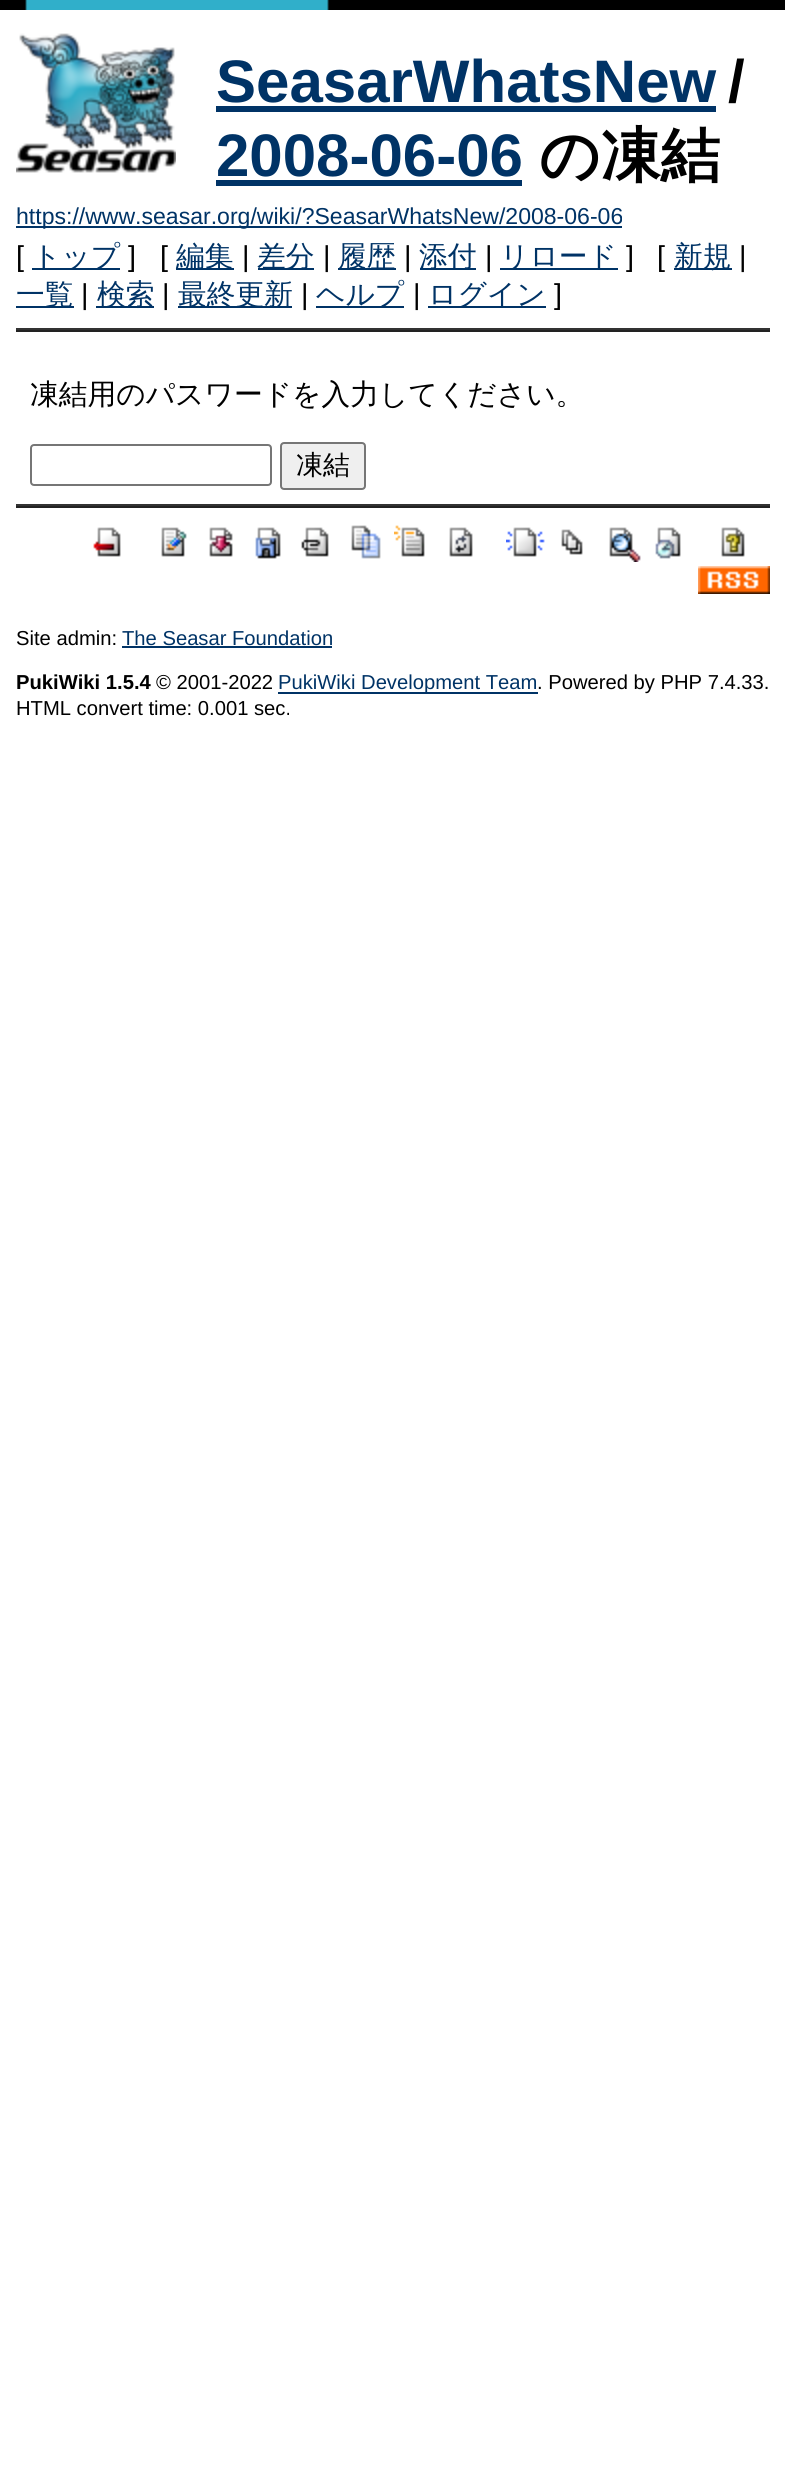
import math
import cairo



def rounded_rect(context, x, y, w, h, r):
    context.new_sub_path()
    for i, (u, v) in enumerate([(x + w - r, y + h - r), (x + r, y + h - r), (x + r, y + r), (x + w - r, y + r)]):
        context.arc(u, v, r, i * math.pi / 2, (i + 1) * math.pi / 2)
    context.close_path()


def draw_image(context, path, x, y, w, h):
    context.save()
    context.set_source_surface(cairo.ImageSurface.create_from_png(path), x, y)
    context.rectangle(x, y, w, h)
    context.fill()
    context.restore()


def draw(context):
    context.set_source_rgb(1, 1, 1)
    context.paint()
    draw_image(context, "images/1.png", 0, 0, 785, 10)
    draw_image(context, "images/2.png", 16, 33, 160, 140)
    context.set_source_rgb(0, 51 / 255, 102 / 255)
    context.rectangle(216, 106, 500, 6)
    context.fill()
    context.rectangle(216, 180, 306, 6)
    context.fill()
    context.rectangle(16, 226, 606, 2)
    context.fill()
    context.rectangle(32, 268, 88, 2)
    context.fill()
    context.rectangle(176, 268, 58, 2)
    context.fill()
    context.rectangle(258, 268, 56, 2)
    context.fill()
    context.rectangle(338, 268, 58, 2)
    context.fill()
    context.rectangle(420, 268, 56, 2)
    context.fill()
    context.rectangle(500, 268, 118, 2)
    context.fill()
    context.rectangle(674, 268, 58, 2)
    context.fill()
    context.rectangle(16, 306, 58, 2)
    context.fill()
    context.rectangle(96, 306, 58, 2)
    context.fill()
    context.rectangle(178, 306, 114, 2)
    context.fill()
    context.rectangle(316, 306, 88, 2)
    context.fill()
    context.rectangle(428, 306, 118, 2)
    context.fill()
    context.set_source_rgb(51 / 255, 51 / 255, 51 / 255)
    context.rectangle(16, 328, 754, 2)
    context.fill()
    context.set_source_rgb(34 / 255, 34 / 255, 34 / 255)
    context.rectangle(16, 330, 754, 2)
    context.fill()
    rounded_rect(context, 31, 445, 240, 40, 3)
    context.set_source_rgb(118 / 255, 118 / 255, 118 / 255)
    context.stroke()
    context.set_source_rgb(239 / 255, 239 / 255, 239 / 255)
    rounded_rect(context, 281, 443, 84, 46, 3)
    context.fill_preserve()
    context.set_source_rgb(118 / 255, 118 / 255, 118 / 255)
    context.stroke()
    context.set_source_rgb(51 / 255, 51 / 255, 51 / 255)
    context.rectangle(16, 504, 754, 2)
    context.fill()
    context.set_source_rgb(34 / 255, 34 / 255, 34 / 255)
    context.rectangle(16, 506, 754, 2)
    context.fill()
    draw_image(context, "images/3.png", 93, 527, 28, 30)
    draw_image(context, "images/4.png", 161, 527, 26, 30)
    draw_image(context, "images/5.png", 209, 527, 24, 30)
    draw_image(context, "images/6.png", 255, 527, 26, 32)
    draw_image(context, "images/7.png", 301, 527, 28, 30)
    draw_image(context, "images/8.png", 351, 525, 30, 34)
    draw_image(context, "images/9.png", 394, 525, 31, 32)
    draw_image(context, "images/10.png", 449, 527, 24, 30)
    draw_image(context, "images/11.png", 506, 527, 39, 30)
    draw_image(context, "images/12.png", 561, 529, 22, 26)
    draw_image(context, "images/13.png", 609, 527, 32, 35)
    draw_image(context, "images/14.png", 655, 527, 26, 32)
    draw_image(context, "images/15.png", 721, 527, 24, 30)
    draw_image(context, "images/16.png", 698, 566, 72, 28)
    context.set_source_rgb(0, 51 / 255, 102 / 255)
    context.rectangle(122, 646, 210, 2)
    context.fill()
    context.rectangle(278, 692, 260, 2)
    context.fill()
    context.select_font_face("Liberation Sans", cairo.FontSlant.NORMAL, cairo.FontWeight.BOLD)
    context.set_font_size(60)
    context.move_to(216, 102)
    context.show_text("SeasarWhatsNew")
    context.set_source_rgb(0, 0, 0)
    context.move_to(728, 102)
    context.show_text("/")
    context.set_source_rgb(0, 51 / 255, 102 / 255)
    context.move_to(216, 176)
    context.show_text("2008-06-06")
    context.select_font_face("WenQuanYi Zen Hei", cairo.FontSlant.NORMAL, cairo.FontWeight.BOLD)
    context.set_source_rgb(0, 0, 0)
    context.move_to(539, 176)
    context.show_text("の凍結")
    context.select_font_face("Liberation Sans")
    context.set_font_size(23.05)
    context.set_source_rgb(0, 51 / 255, 102 / 255)
    context.move_to(16, 224)
    context.show_text("https://www.seasar.org/wiki/?SeasarWhatsNew/2008-06-06")
    context.set_font_size(28.75)
    context.set_source_rgb(0, 0, 0)
    context.move_to(16, 266)
    context.show_text("[")
    context.select_font_face("WenQuanYi Zen Hei Medium")
    context.set_source_rgb(0, 51 / 255, 102 / 255)
    context.move_to(32, 266)
    context.show_text("トップ")
    context.select_font_face("Liberation Sans")
    context.set_source_rgb(0, 0, 0)
    context.move_to(128, 266)
    context.show_text("]")
    context.move_to(160, 266)
    context.show_text("[")
    context.select_font_face("WenQuanYi Zen Hei Medium")
    context.set_source_rgb(0, 51 / 255, 102 / 255)
    context.move_to(176, 266)
    context.show_text("編集")
    context.select_font_face("Liberation Sans")
    context.set_source_rgb(0, 0, 0)
    context.move_to(242, 266)
    context.show_text("|")
    context.select_font_face("WenQuanYi Zen Hei Medium")
    context.set_source_rgb(0, 51 / 255, 102 / 255)
    context.move_to(257, 266)
    context.show_text("差分")
    context.select_font_face("Liberation Sans")
    context.set_source_rgb(0, 0, 0)
    context.move_to(323, 266)
    context.show_text("|")
    context.select_font_face("WenQuanYi Zen Hei Medium")
    context.set_source_rgb(0, 51 / 255, 102 / 255)
    context.move_to(338, 266)
    context.show_text("履歴")
    context.select_font_face("Liberation Sans")
    context.set_source_rgb(0, 0, 0)
    context.move_to(404, 266)
    context.show_text("|")
    context.select_font_face("WenQuanYi Zen Hei Medium")
    context.set_source_rgb(0, 51 / 255, 102 / 255)
    context.move_to(419, 266)
    context.show_text("添付")
    context.select_font_face("Liberation Sans")
    context.set_source_rgb(0, 0, 0)
    context.move_to(485, 266)
    context.show_text("|")
    context.select_font_face("WenQuanYi Zen Hei Medium")
    context.set_source_rgb(0, 51 / 255, 102 / 255)
    context.move_to(500, 266)
    context.show_text("リロード")
    context.select_font_face("Liberation Sans")
    context.set_source_rgb(0, 0, 0)
    context.move_to(626, 266)
    context.show_text("]")
    context.move_to(657, 266)
    context.show_text("[")
    context.select_font_face("WenQuanYi Zen Hei Medium")
    context.set_source_rgb(0, 51 / 255, 102 / 255)
    context.move_to(674, 266)
    context.show_text("新規")
    context.select_font_face("Liberation Sans")
    context.set_source_rgb(0, 0, 0)
    context.move_to(739, 266)
    context.show_text("|")
    context.select_font_face("WenQuanYi Zen Hei Medium")
    context.set_source_rgb(0, 51 / 255, 102 / 255)
    context.move_to(16, 304)
    context.show_text("一覧")
    context.select_font_face("Liberation Sans")
    context.set_source_rgb(0, 0, 0)
    context.move_to(81, 304)
    context.show_text("|")
    context.select_font_face("WenQuanYi Zen Hei Medium")
    context.set_source_rgb(0, 51 / 255, 102 / 255)
    context.move_to(97, 304)
    context.show_text("検索")
    context.select_font_face("Liberation Sans")
    context.set_source_rgb(0, 0, 0)
    context.move_to(162, 304)
    context.show_text("|")
    context.select_font_face("WenQuanYi Zen Hei Medium")
    context.set_source_rgb(0, 51 / 255, 102 / 255)
    context.move_to(178, 304)
    context.show_text("最終更新")
    context.select_font_face("Liberation Sans")
    context.set_source_rgb(0, 0, 0)
    context.move_to(301, 304)
    context.show_text("|")
    context.select_font_face("WenQuanYi Zen Hei Medium")
    context.set_source_rgb(0, 51 / 255, 102 / 255)
    context.move_to(316, 304)
    context.show_text("ヘルプ")
    context.select_font_face("Liberation Sans")
    context.set_source_rgb(0, 0, 0)
    context.move_to(413, 304)
    context.show_text("|")
    context.select_font_face("WenQuanYi Zen Hei Medium")
    context.set_source_rgb(0, 51 / 255, 102 / 255)
    context.move_to(428, 304)
    context.show_text("ログイン")
    context.select_font_face("Liberation Sans")
    context.set_source_rgb(0, 0, 0)
    context.move_to(554, 304)
    context.show_text("]")
    context.select_font_face("WenQuanYi Zen Hei Medium")
    context.move_to(30, 404)
    context.show_text("凍結用のパスワードを入力してください。")
    context.set_font_size(27)
    context.move_to(296, 474)
    context.show_text("凍結")
    context.select_font_face("Liberation Sans")
    context.set_font_size(20.2)
    context.move_to(16, 645)
    context.show_text("Site admin:")
    context.set_source_rgb(0, 51 / 255, 102 / 255)
    context.move_to(122, 645)
    context.show_text("The Seasar Foundation")
    context.select_font_face("Liberation Sans", cairo.FontSlant.NORMAL, cairo.FontWeight.BOLD)
    context.set_source_rgb(0, 0, 0)
    context.move_to(16, 689)
    context.show_text("PukiWiki 1.5.4")
    context.select_font_face("Liberation Sans")
    context.move_to(156, 689)
    context.show_text("© 2001-2022")
    context.set_source_rgb(0, 51 / 255, 102 / 255)
    context.move_to(278, 689)
    context.show_text("PukiWiki Development Team")
    context.set_source_rgb(0, 0, 0)
    context.move_to(537, 689)
    context.show_text(". Powered by PHP 7.4.33.")
    context.move_to(16, 715)
    context.show_text("HTML convert time: 0.001 sec.")


surface = cairo.ImageSurface(cairo.Format.RGB24, 785, 2478)
context = cairo.Context(surface)
options = cairo.FontOptions()
options.set_hint_metrics(cairo.HintMetrics.OFF)
options.set_hint_style(cairo.HintStyle.NONE)
context.set_font_options(options)
context.set_miter_limit(4)
draw(context)
surface.write_to_png("out.png")
